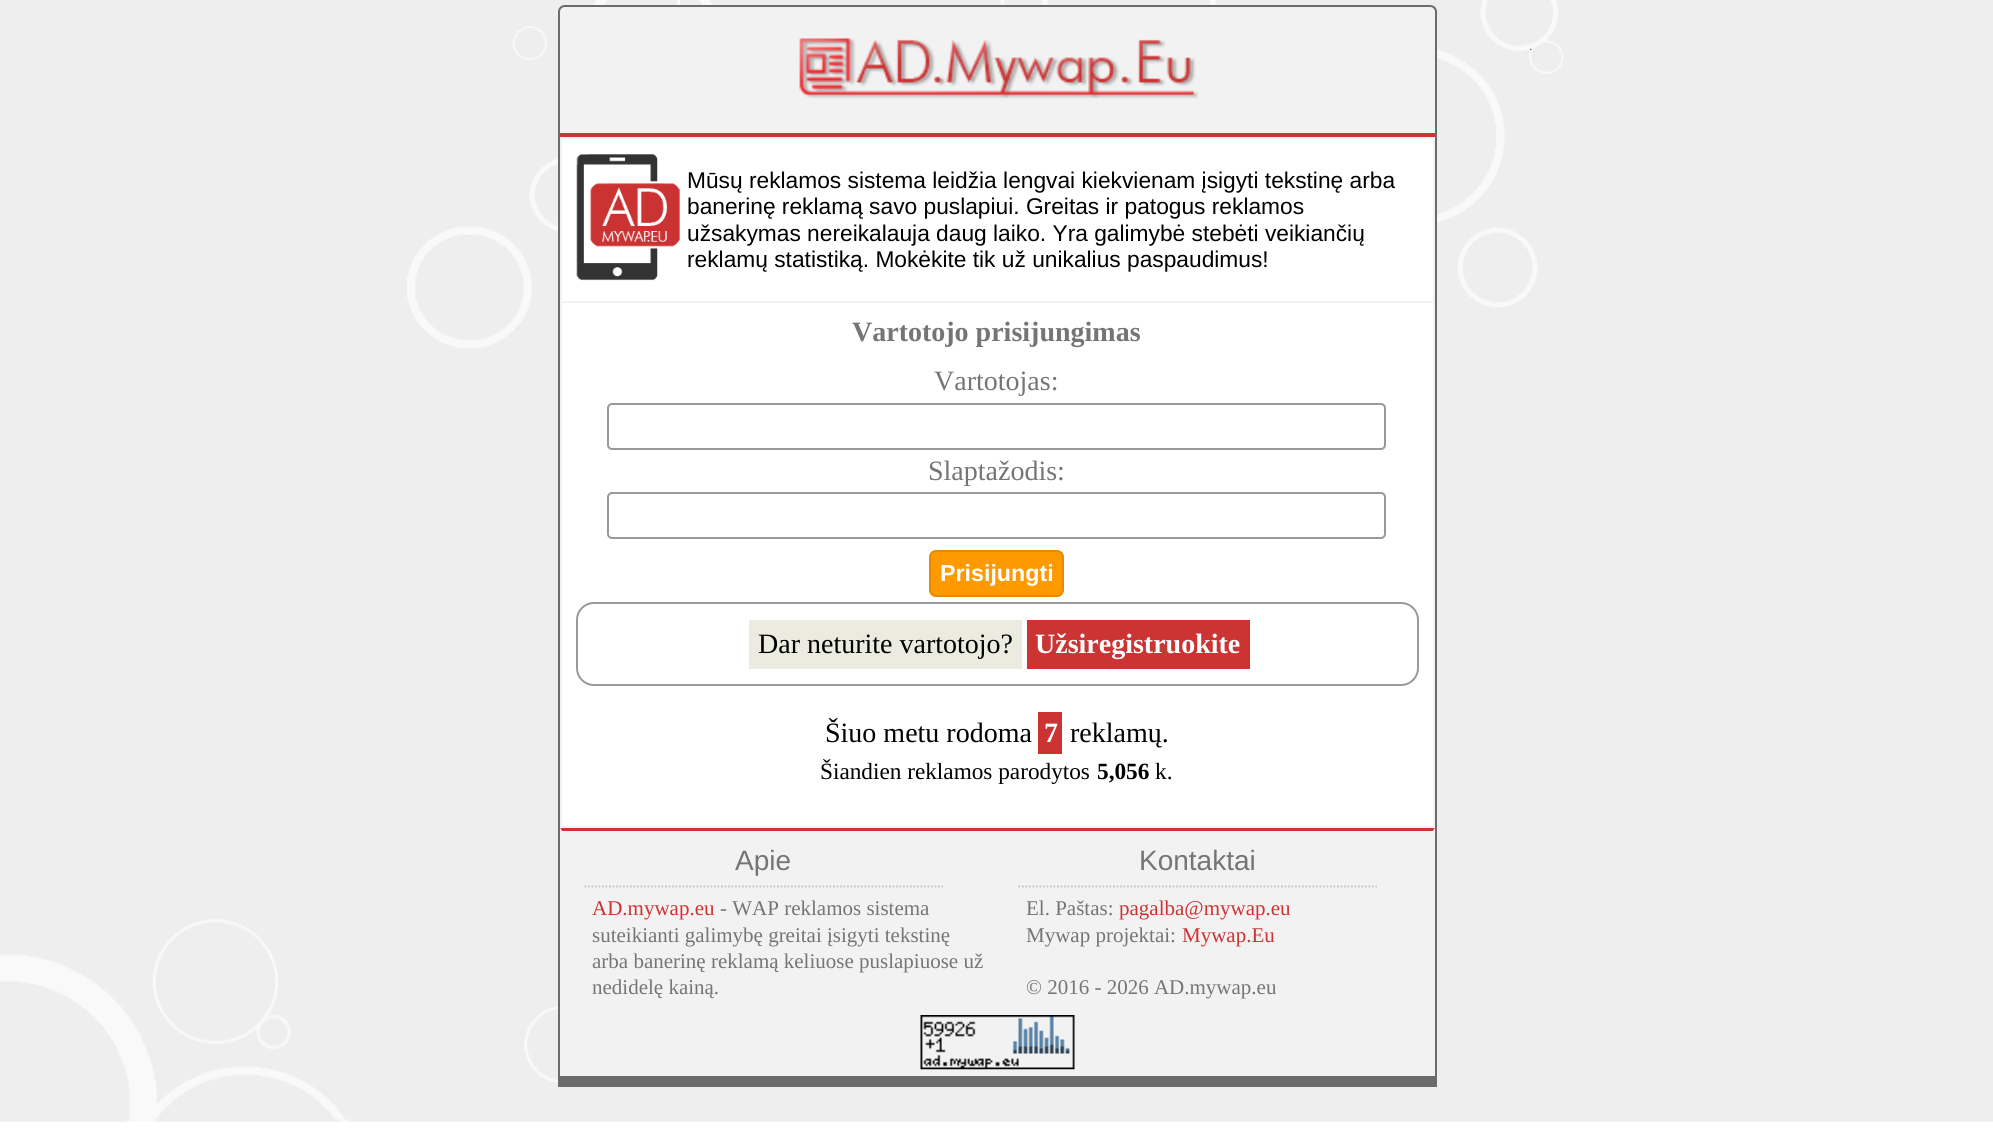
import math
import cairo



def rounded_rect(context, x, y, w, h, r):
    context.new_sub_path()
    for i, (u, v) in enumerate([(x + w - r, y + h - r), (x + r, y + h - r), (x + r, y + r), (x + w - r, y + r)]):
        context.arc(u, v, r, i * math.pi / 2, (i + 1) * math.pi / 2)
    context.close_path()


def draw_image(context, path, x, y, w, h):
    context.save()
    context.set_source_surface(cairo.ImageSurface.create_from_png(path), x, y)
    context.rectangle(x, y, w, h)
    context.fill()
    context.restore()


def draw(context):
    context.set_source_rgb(1, 1, 1)
    context.paint()
    draw_image(context, "images/1.png", 0, 0, 1993, 1122)
    context.new_path()
    context.move_to(565, 6)
    context.line_to(1430, 6)
    context.curve_to(1433.5, 6, 1436, 8.5, 1436, 12)
    context.line_to(1436, 1086)
    context.line_to(559, 1086)
    context.line_to(559, 12)
    context.curve_to(559, 8.5, 561.5, 6, 565, 6)
    context.close_path()
    context.set_source_rgb(107 / 255, 107 / 255, 107 / 255)
    context.stroke()
    context.set_source_rgb(242 / 255, 242 / 255, 242 / 255)
    context.new_path()
    context.move_to(567, 7)
    context.line_to(1428, 7)
    context.curve_to(1432, 7, 1435, 10, 1435, 14)
    context.line_to(1435, 137)
    context.line_to(560, 137)
    context.line_to(560, 14)
    context.curve_to(560, 10, 563, 7, 567, 7)
    context.close_path()
    context.fill()
    context.set_source_rgb(204 / 255, 51 / 255, 51 / 255)
    context.rectangle(560, 133, 875, 4)
    context.fill()
    draw_image(context, "images/2.png", 799, 38, 400, 61)
    context.set_source_rgb(1, 1, 1)
    context.rectangle(561, 138, 873, 164)
    context.fill_preserve()
    context.set_source_rgb(242 / 255, 242 / 255, 242 / 255)
    context.stroke()
    draw_image(context, "images/3.png", 576, 154, 104, 127)
    context.set_source_rgb(1, 1, 1)
    context.rectangle(562, 303, 871, 523)
    context.fill()
    context.set_source_rgb(242 / 255, 242 / 255, 242 / 255)
    context.rectangle(1433, 303, 2, 525)
    context.fill()
    context.rectangle(560, 826, 875, 250)
    context.fill()
    context.rectangle(560, 303, 2, 525)
    context.fill()
    rounded_rect(context, 608, 404, 777, 45, 4)
    context.set_source_rgb(153 / 255, 153 / 255, 153 / 255)
    context.stroke()
    rounded_rect(context, 608, 493, 777, 45, 4)
    context.stroke()
    context.set_source_rgb(1, 153 / 255, 0)
    rounded_rect(context, 930, 551, 133, 45, 6)
    context.fill_preserve()
    context.set_source_rgb(230 / 255, 138 / 255, 0)
    context.stroke()
    rounded_rect(context, 577, 603, 841, 82, 17)
    context.set_source_rgb(153 / 255, 153 / 255, 153 / 255)
    context.stroke()
    context.set_source_rgb(235 / 255, 235 / 255, 224 / 255)
    context.rectangle(749, 620, 273, 49)
    context.fill()
    context.set_source_rgb(204 / 255, 51 / 255, 51 / 255)
    context.rectangle(1027, 620, 223, 49)
    context.fill()
    context.rectangle(1038, 712, 24, 42)
    context.fill()
    context.new_path()
    context.move_to(560, 828)
    context.line_to(1435, 828)
    context.line_to(1433, 831)
    context.line_to(562, 831)
    context.close_path()
    context.fill()
    context.set_source_rgb(242 / 255, 242 / 255, 242 / 255)
    context.new_path()
    context.move_to(1435, 828)
    context.line_to(1435, 1076)
    context.line_to(1433, 1076)
    context.line_to(1433, 831)
    context.close_path()
    context.fill()
    context.new_path()
    context.move_to(560, 1076)
    context.line_to(560, 828)
    context.line_to(562, 831)
    context.line_to(562, 1076)
    context.close_path()
    context.fill()
    context.new_path()
    context.move_to(584.5, 886.5)
    context.line_to(943, 886.5)
    context.set_source_rgb(194 / 255, 194 / 255, 194 / 255)
    context.set_line_width(1.8)
    context.set_dash([1.75, 1.75])
    context.stroke()
    context.new_path()
    context.move_to(1018.5, 886.5)
    context.line_to(1377, 886.5)
    context.stroke()
    draw_image(context, "images/4.png", 920, 1015, 155, 55)
    context.set_source_rgb(107 / 255, 107 / 255, 107 / 255)
    context.rectangle(560, 1076, 875, 9)
    context.fill()
    context.select_font_face("Liberation Sans")
    context.set_font_size(22.75)
    context.set_source_rgb(0, 0, 0)
    context.move_to(687, 188)
    context.show_text("Mūsų reklamos sistema leidžia lengvai kiekvienam įsigyti tekstinę arba")
    context.move_to(687, 214)
    context.show_text("banerinę reklamą savo puslapiui. Greitas ir patogus reklamos")
    context.move_to(687, 241)
    context.show_text("užsakymas nereikalauja daug laiko. Yra galimybė stebėti veikiančių")
    context.move_to(687, 267)
    context.show_text("reklamų statistiką. Mokėkite tik už unikalius paspaudimus!")
    context.select_font_face("Liberation Serif", cairo.FontSlant.NORMAL, cairo.FontWeight.BOLD)
    context.set_font_size(28)
    context.set_source_rgb(117 / 255, 117 / 255, 117 / 255)
    context.move_to(852, 341)
    context.show_text("Vartotojo prisijungimas")
    context.select_font_face("Liberation Serif")
    context.move_to(934, 390)
    context.show_text("Vartotojas:")
    context.move_to(928, 480)
    context.show_text("Slaptažodis:")
    context.select_font_face("Liberation Sans", cairo.FontSlant.NORMAL, cairo.FontWeight.BOLD)
    context.set_font_size(23.25)
    context.set_source_rgb(1, 1, 1)
    context.move_to(940, 581)
    context.show_text("Prisijungti")
    context.select_font_face("Liberation Serif")
    context.set_font_size(28)
    context.set_source_rgb(0, 0, 0)
    context.move_to(758, 653)
    context.show_text("Dar neturite vartotojo?")
    context.select_font_face("Liberation Serif", cairo.FontSlant.NORMAL, cairo.FontWeight.BOLD)
    context.set_source_rgb(1, 1, 1)
    context.move_to(1035, 653)
    context.show_text("Užsiregistruokite")
    context.select_font_face("Liberation Serif")
    context.set_source_rgb(0, 0, 0)
    context.move_to(825, 742)
    context.show_text("Šiuo metu rodoma")
    context.select_font_face("Liberation Serif", cairo.FontSlant.NORMAL, cairo.FontWeight.BOLD)
    context.set_source_rgb(1, 1, 1)
    context.move_to(1044, 742)
    context.show_text("7")
    context.select_font_face("Liberation Serif")
    context.set_source_rgb(0, 0, 0)
    context.move_to(1070, 742)
    context.show_text("reklamų.")
    context.set_font_size(23.25)
    context.move_to(820, 779)
    context.show_text("Šiandien reklamos parodytos")
    context.select_font_face("Liberation Serif", cairo.FontSlant.NORMAL, cairo.FontWeight.BOLD)
    context.move_to(1097, 779)
    context.show_text("5,056")
    context.select_font_face("Liberation Serif")
    context.move_to(1155, 779)
    context.show_text("k.")
    context.select_font_face("Liberation Sans")
    context.set_font_size(28)
    context.set_source_rgb(117 / 255, 117 / 255, 117 / 255)
    context.move_to(735, 870)
    context.show_text("Apie")
    context.select_font_face("Liberation Serif")
    context.set_font_size(21)
    context.set_source_rgb(204 / 255, 51 / 255, 51 / 255)
    context.move_to(592, 915)
    context.show_text("AD.mywap.eu")
    context.set_source_rgb(117 / 255, 117 / 255, 117 / 255)
    context.move_to(720, 915)
    context.show_text("- WAP reklamos sistema")
    context.move_to(592, 942)
    context.show_text("suteikianti galimybę greitai įsigyti tekstinę")
    context.move_to(592, 968)
    context.show_text("arba banerinę reklamą keliuose puslapiuose už")
    context.move_to(592, 994)
    context.show_text("nedidelę kainą.")
    context.select_font_face("Liberation Sans")
    context.set_font_size(28)
    context.move_to(1139, 870)
    context.show_text("Kontaktai")
    context.select_font_face("Liberation Serif")
    context.set_font_size(21)
    context.move_to(1026, 915)
    context.show_text("El. Paštas:")
    context.set_source_rgb(204 / 255, 51 / 255, 51 / 255)
    context.move_to(1119, 915)
    context.show_text("pagalba@mywap.eu")
    context.set_source_rgb(117 / 255, 117 / 255, 117 / 255)
    context.move_to(1026, 942)
    context.show_text("Mywap projektai:")
    context.set_source_rgb(204 / 255, 51 / 255, 51 / 255)
    context.move_to(1182, 942)
    context.show_text("Mywap.Eu")
    context.set_source_rgb(117 / 255, 117 / 255, 117 / 255)
    context.move_to(1026, 994)
    context.show_text("© 2016 - 2026 AD.mywap.eu")


surface = cairo.ImageSurface(cairo.Format.RGB24, 1993, 1145)
context = cairo.Context(surface)
options = cairo.FontOptions()
options.set_hint_metrics(cairo.HintMetrics.OFF)
options.set_hint_style(cairo.HintStyle.NONE)
context.set_font_options(options)
context.set_miter_limit(4)
draw(context)
surface.write_to_png("out.png")
